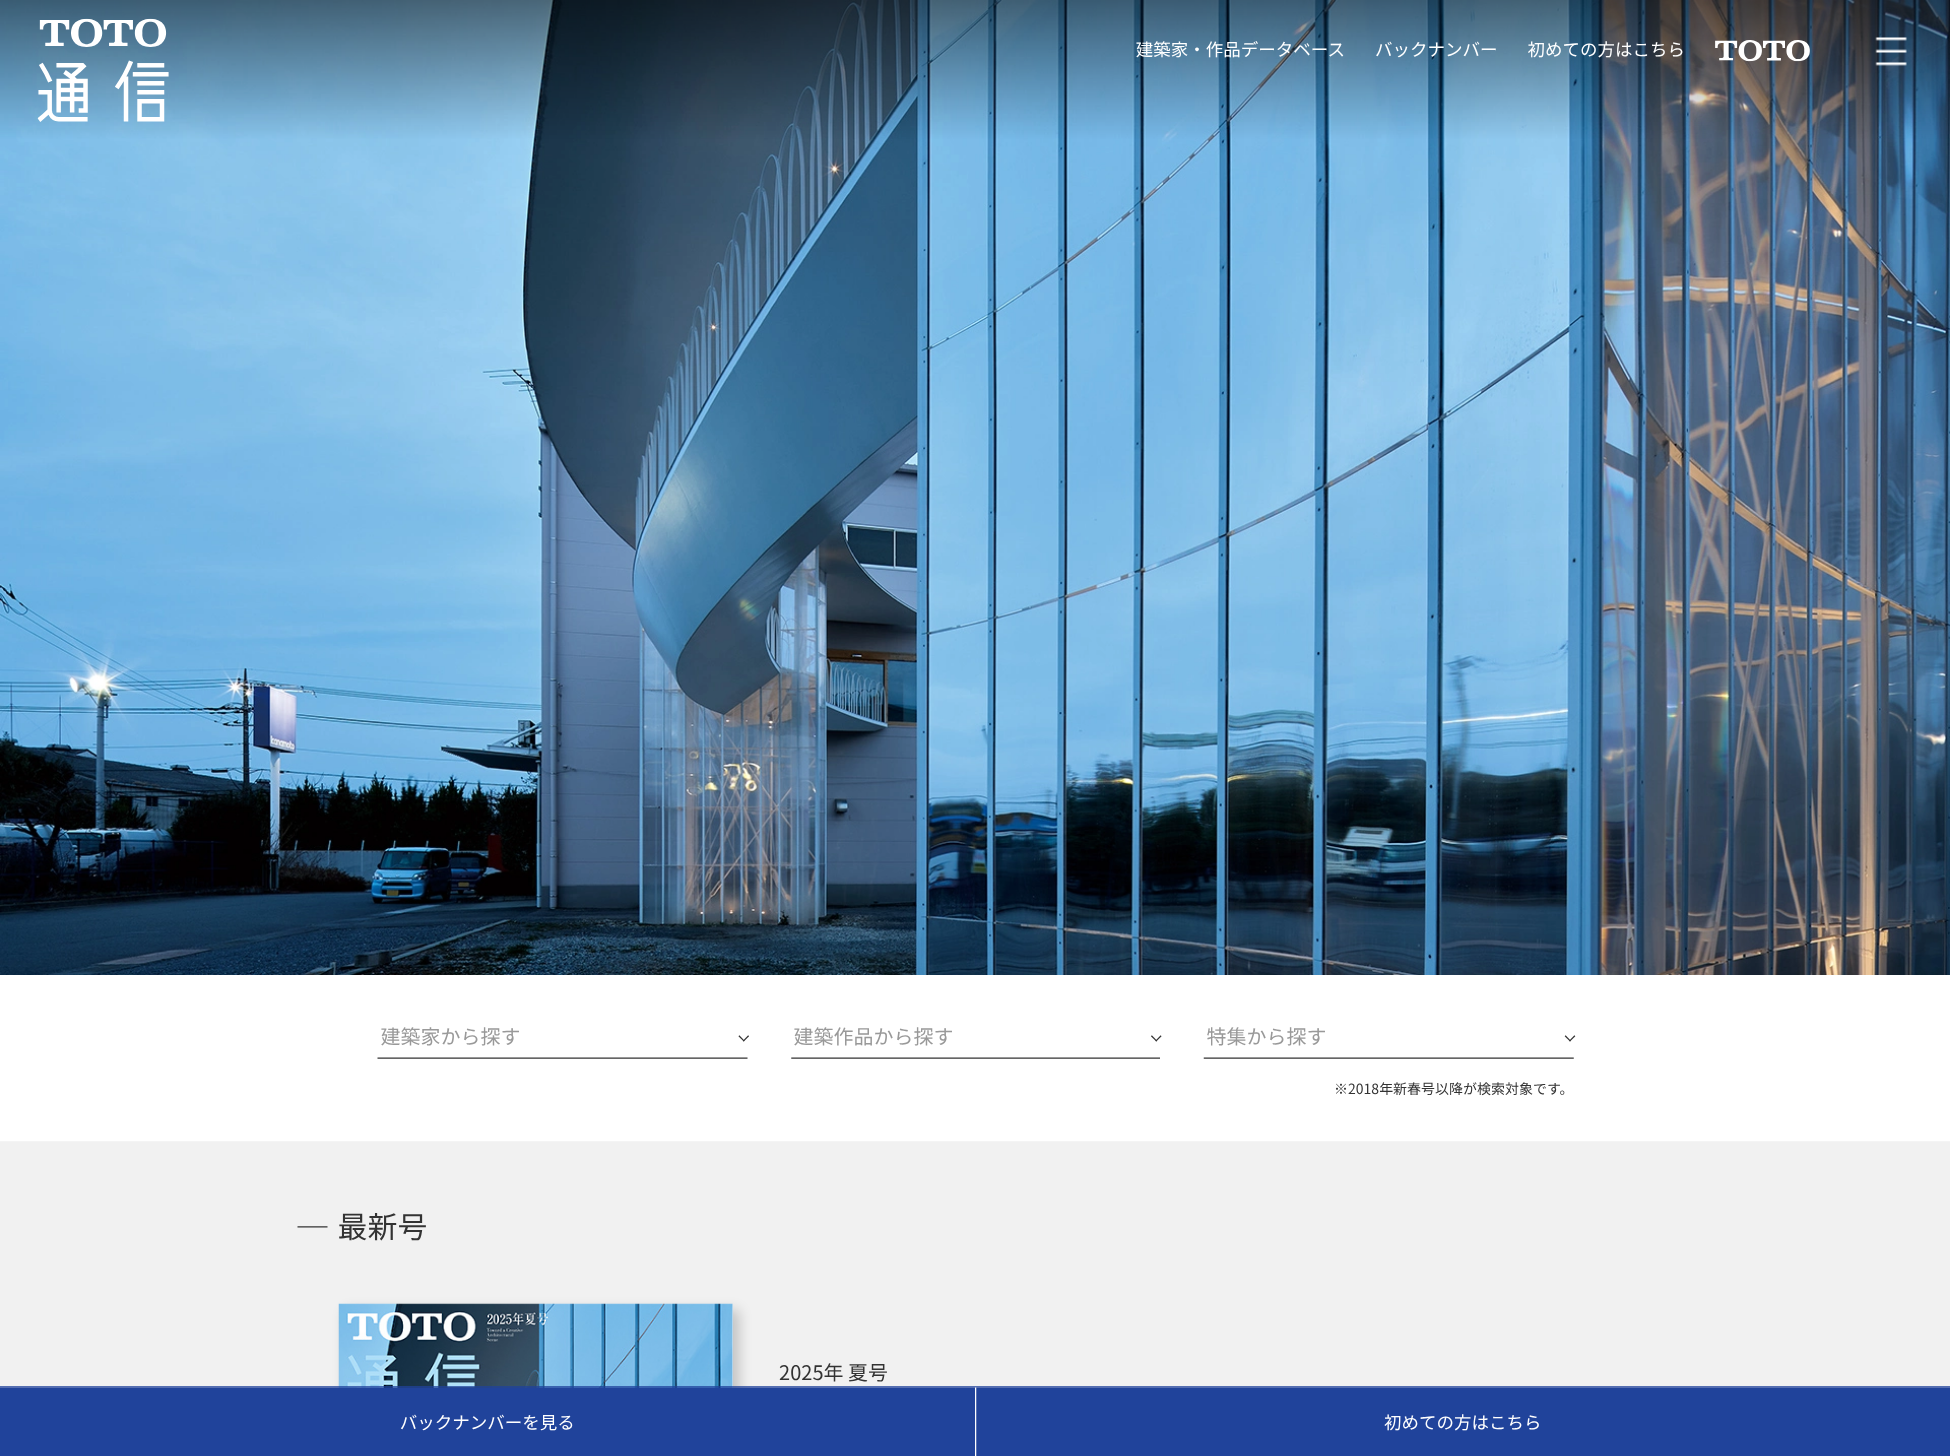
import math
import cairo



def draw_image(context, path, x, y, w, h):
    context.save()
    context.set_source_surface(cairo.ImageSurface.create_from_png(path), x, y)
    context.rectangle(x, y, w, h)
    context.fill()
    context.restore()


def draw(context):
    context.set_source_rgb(1, 1, 1)
    context.paint()
    draw_image(context, "images/1.png", 0, 0, 1950, 1456)


surface = cairo.ImageSurface(cairo.Format.RGB24, 1950, 1456)
context = cairo.Context(surface)
options = cairo.FontOptions()
options.set_hint_metrics(cairo.HintMetrics.OFF)
options.set_hint_style(cairo.HintStyle.NONE)
context.set_font_options(options)
context.set_miter_limit(4)
draw(context)
surface.write_to_png("out.png")
